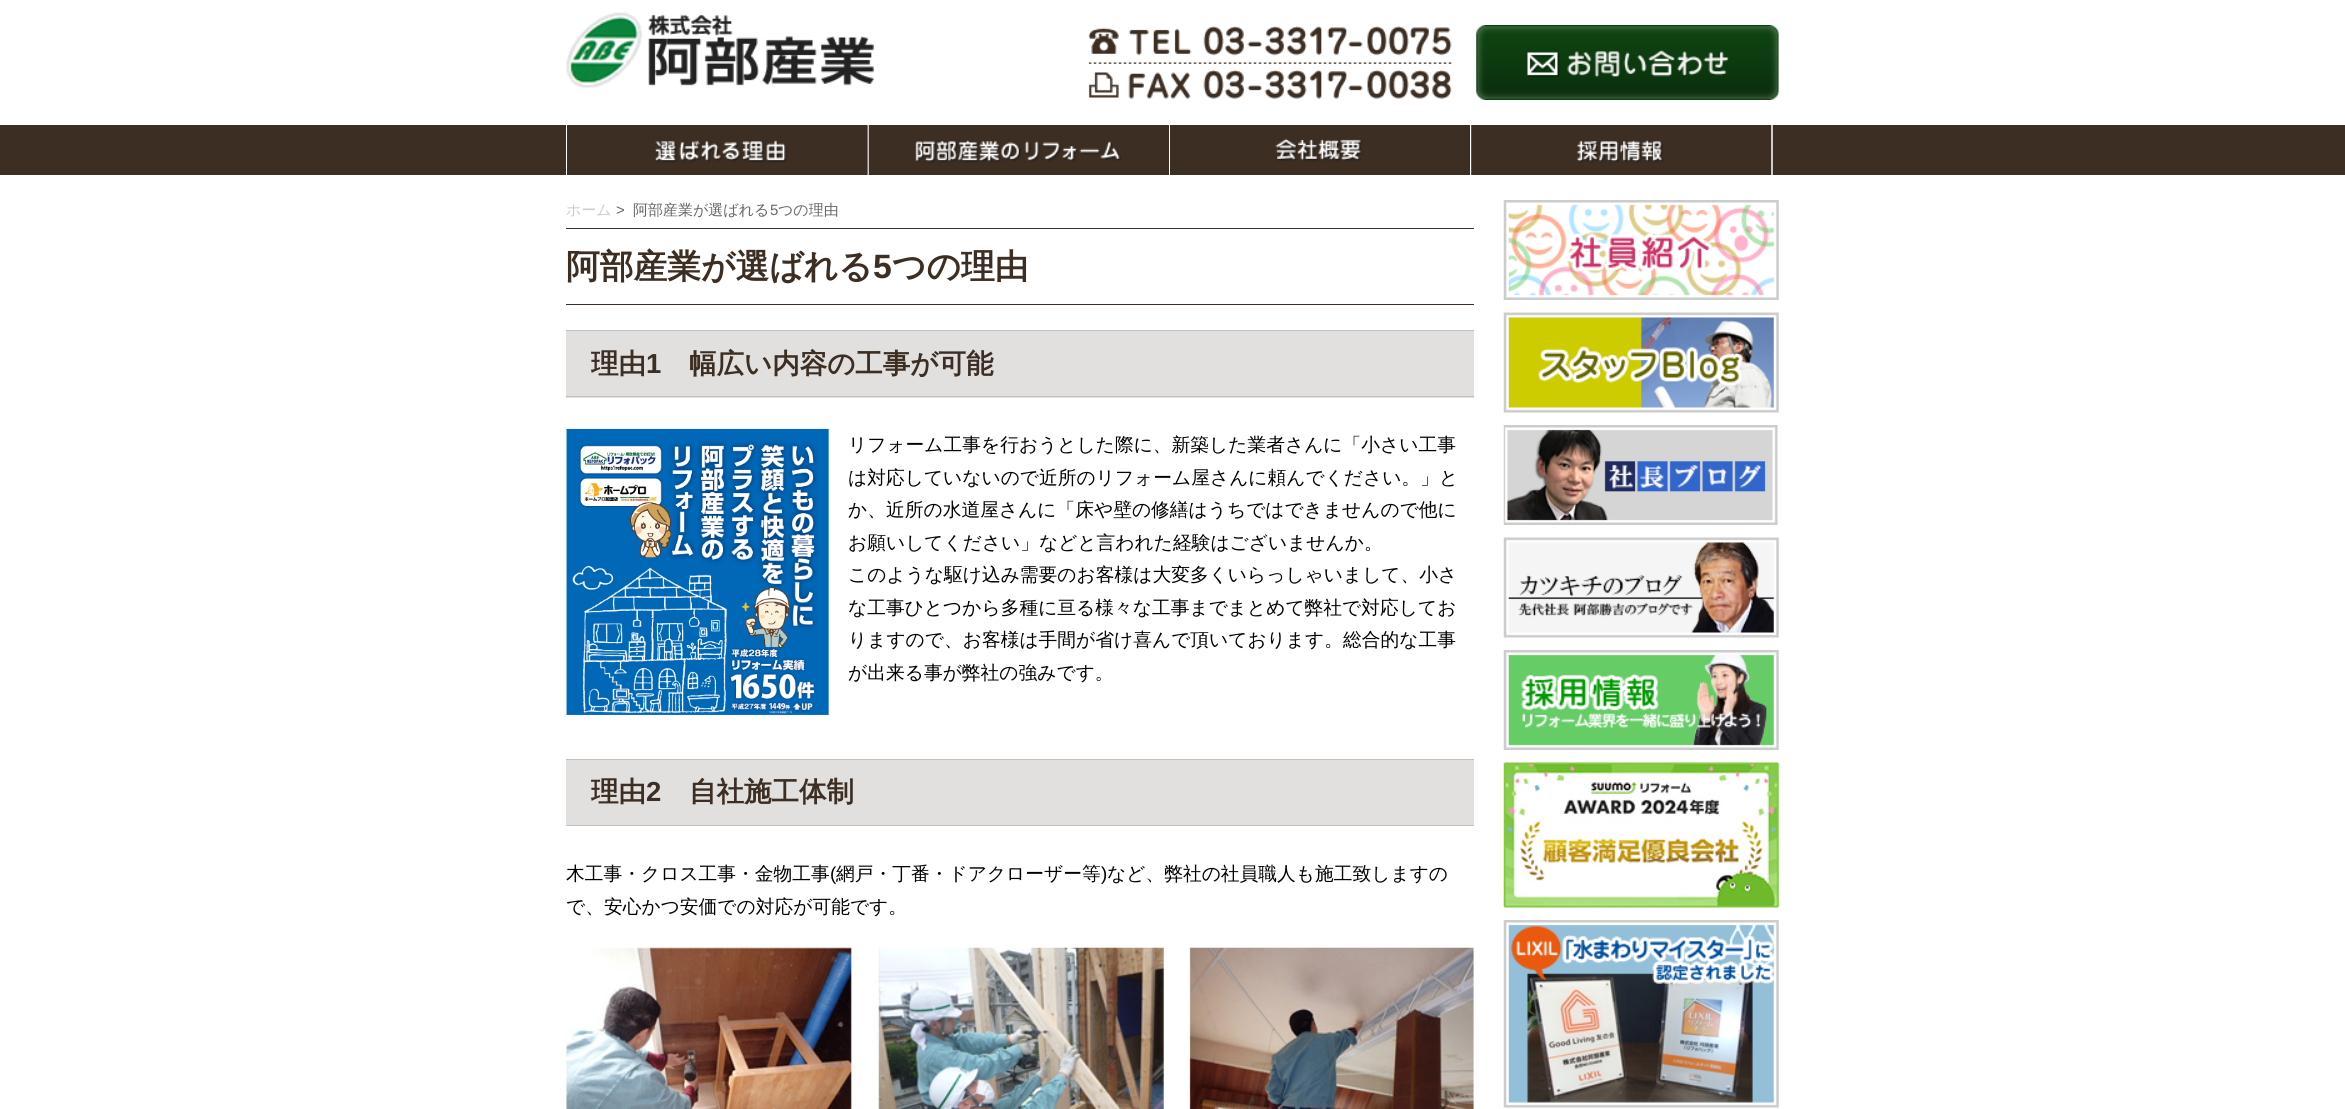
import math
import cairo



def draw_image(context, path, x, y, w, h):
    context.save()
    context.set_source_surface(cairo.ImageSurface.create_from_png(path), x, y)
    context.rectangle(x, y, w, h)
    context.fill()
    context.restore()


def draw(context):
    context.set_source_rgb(1, 1, 1)
    context.paint()
    draw_image(context, "images/1.png", 566, 12, 308, 76)
    draw_image(context, "images/2.png", 1088, 26, 364, 73)
    draw_image(context, "images/3.png", 1476, 25, 303, 75)
    context.set_source_rgb(60 / 255, 46 / 255, 35 / 255)
    context.rectangle(0, 125, 2345, 50)
    context.fill()
    context.set_source_rgb(1, 1, 1)
    context.rectangle(566, 125, 1, 50)
    context.fill()
    context.set_source_rgb(206 / 255, 203 / 255, 200 / 255)
    context.rectangle(867, 125, 1, 50)
    context.fill()
    context.set_source_rgb(1, 1, 1)
    context.rectangle(868, 125, 1, 50)
    context.fill()
    draw_image(context, "images/4.png", 568, 125, 300, 50)
    context.rectangle(1169, 125, 1, 50)
    context.fill()
    draw_image(context, "images/5.png", 868, 125, 301, 50)
    context.rectangle(1470, 125, 1, 50)
    context.fill()
    draw_image(context, "images/6.png", 1170, 125, 300, 50)
    context.set_source_rgb(206 / 255, 203 / 255, 200 / 255)
    context.rectangle(1471, 125, 302, 50)
    context.fill()
    context.set_source_rgb(1, 1, 1)
    context.rectangle(1771, 125, 1, 50)
    context.fill()
    draw_image(context, "images/7.png", 1471, 125, 301, 50)
    context.set_source_rgb(60 / 255, 46 / 255, 35 / 255)
    context.rectangle(566, 228, 908, 1)
    context.fill()
    context.rectangle(566, 304, 908, 1)
    context.fill()
    context.set_source_rgb(226 / 255, 224 / 255, 222 / 255)
    context.rectangle(566, 331, 908, 67)
    context.fill()
    context.set_source_rgb(196 / 255, 192 / 255, 189 / 255)
    context.rectangle(566, 330, 908, 1)
    context.fill()
    context.rectangle(566, 396, 908, 1)
    context.fill()
    draw_image(context, "images/8.png", 566, 428, 263, 287)
    context.set_source_rgb(226 / 255, 224 / 255, 222 / 255)
    context.rectangle(566, 760, 908, 65)
    context.fill()
    context.set_source_rgb(196 / 255, 192 / 255, 189 / 255)
    context.rectangle(566, 759, 908, 1)
    context.fill()
    context.rectangle(566, 825, 908, 1)
    context.fill()
    draw_image(context, "images/9.png", 566, 947, 908, 162)
    draw_image(context, "images/10.png", 1503, 200, 276, 100)
    draw_image(context, "images/11.png", 1503, 312, 276, 101)
    draw_image(context, "images/12.png", 1503, 425, 275, 100)
    draw_image(context, "images/13.png", 1503, 537, 276, 101)
    draw_image(context, "images/14.png", 1503, 650, 276, 100)
    draw_image(context, "images/15.png", 1503, 762, 276, 146)
    draw_image(context, "images/16.png", 1503, 920, 276, 188)
    context.select_font_face("WenQuanYi Zen Hei Medium")
    context.set_font_size(15)
    context.set_source_rgb(204 / 255, 204 / 255, 204 / 255)
    context.move_to(566, 215)
    context.show_text("ホーム")
    context.select_font_face("Liberation Sans")
    context.set_source_rgb(102 / 255, 102 / 255, 102 / 255)
    context.move_to(616, 215)
    context.show_text(">")
    context.select_font_face("WenQuanYi Zen Hei Medium")
    context.move_to(633, 215)
    context.show_text("阿部産業が選ばれる")
    context.select_font_face("Liberation Sans")
    context.move_to(770, 215)
    context.show_text("5")
    context.select_font_face("WenQuanYi Zen Hei Medium")
    context.move_to(778, 215)
    context.show_text("つの理由")
    context.select_font_face("WenQuanYi Zen Hei", cairo.FontSlant.NORMAL, cairo.FontWeight.BOLD)
    context.set_font_size(33.75)
    context.set_source_rgb(60 / 255, 46 / 255, 35 / 255)
    context.move_to(566, 278)
    context.show_text("阿部産業が選ばれる")
    context.select_font_face("Liberation Sans", cairo.FontSlant.NORMAL, cairo.FontWeight.BOLD)
    context.move_to(873, 278)
    context.show_text("5")
    context.select_font_face("WenQuanYi Zen Hei", cairo.FontSlant.NORMAL, cairo.FontWeight.BOLD)
    context.move_to(892, 278)
    context.show_text("つの理由")
    context.set_font_size(27.5)
    context.move_to(591, 373)
    context.show_text("理由")
    context.select_font_face("Liberation Sans", cairo.FontSlant.NORMAL, cairo.FontWeight.BOLD)
    context.move_to(646, 373)
    context.show_text("1")
    context.select_font_face("WenQuanYi Zen Hei", cairo.FontSlant.NORMAL, cairo.FontWeight.BOLD)
    context.move_to(689, 373)
    context.show_text("幅広い内容の工事が可能")
    context.select_font_face("WenQuanYi Zen Hei Medium")
    context.set_font_size(18.75)
    context.set_source_rgb(0, 0, 0)
    context.move_to(848, 451)
    context.show_text("リフォーム工事を行おうとした際に、新築した業者さんに「小さい工事")
    context.move_to(848, 484)
    context.show_text("は対応していないので近所のリフォーム屋さんに頼んでください。」と")
    context.move_to(848, 516)
    context.show_text("か、近所の水道屋さんに「床や壁の修繕はうちではできませんので他に")
    context.move_to(848, 549)
    context.show_text("お願いしてください」などと言われた経験はございませんか。")
    context.move_to(848, 581)
    context.show_text("このような駆け込み需要のお客様は大変多くいらっしゃいまして、小さ")
    context.move_to(848, 614)
    context.show_text("な工事ひとつから多種に亘る様々な工事までまとめて弊社で対応してお")
    context.move_to(848, 646)
    context.show_text("りますので、お客様は手間が省け喜んで頂いております。総合的な工事")
    context.move_to(848, 679)
    context.show_text("が出来る事が弊社の強みです。")
    context.select_font_face("WenQuanYi Zen Hei", cairo.FontSlant.NORMAL, cairo.FontWeight.BOLD)
    context.set_font_size(27.5)
    context.set_source_rgb(60 / 255, 46 / 255, 35 / 255)
    context.move_to(591, 801)
    context.show_text("理由")
    context.select_font_face("Liberation Sans", cairo.FontSlant.NORMAL, cairo.FontWeight.BOLD)
    context.move_to(646, 801)
    context.show_text("2")
    context.select_font_face("WenQuanYi Zen Hei", cairo.FontSlant.NORMAL, cairo.FontWeight.BOLD)
    context.move_to(689, 801)
    context.show_text("自社施工体制")
    context.select_font_face("WenQuanYi Zen Hei Medium")
    context.set_font_size(18.75)
    context.set_source_rgb(0, 0, 0)
    context.move_to(566, 880)
    context.show_text("木工事・クロス工事・金物工事")
    context.select_font_face("Liberation Sans")
    context.move_to(830, 880)
    context.show_text("(")
    context.select_font_face("WenQuanYi Zen Hei Medium")
    context.move_to(836, 880)
    context.show_text("網戸・丁番・ドアクローザー等")
    context.select_font_face("Liberation Sans")
    context.move_to(1101, 880)
    context.show_text(")")
    context.select_font_face("WenQuanYi Zen Hei Medium")
    context.move_to(1107, 880)
    context.show_text("など、弊社の社員職人も施工致しますの")
    context.move_to(566, 913)
    context.show_text("で、安心かつ安価での対応が可能です。")


surface = cairo.ImageSurface(cairo.Format.RGB24, 2345, 1109)
context = cairo.Context(surface)
options = cairo.FontOptions()
options.set_hint_metrics(cairo.HintMetrics.OFF)
options.set_hint_style(cairo.HintStyle.NONE)
context.set_font_options(options)
context.set_miter_limit(4)
draw(context)
surface.write_to_png("out.png")
